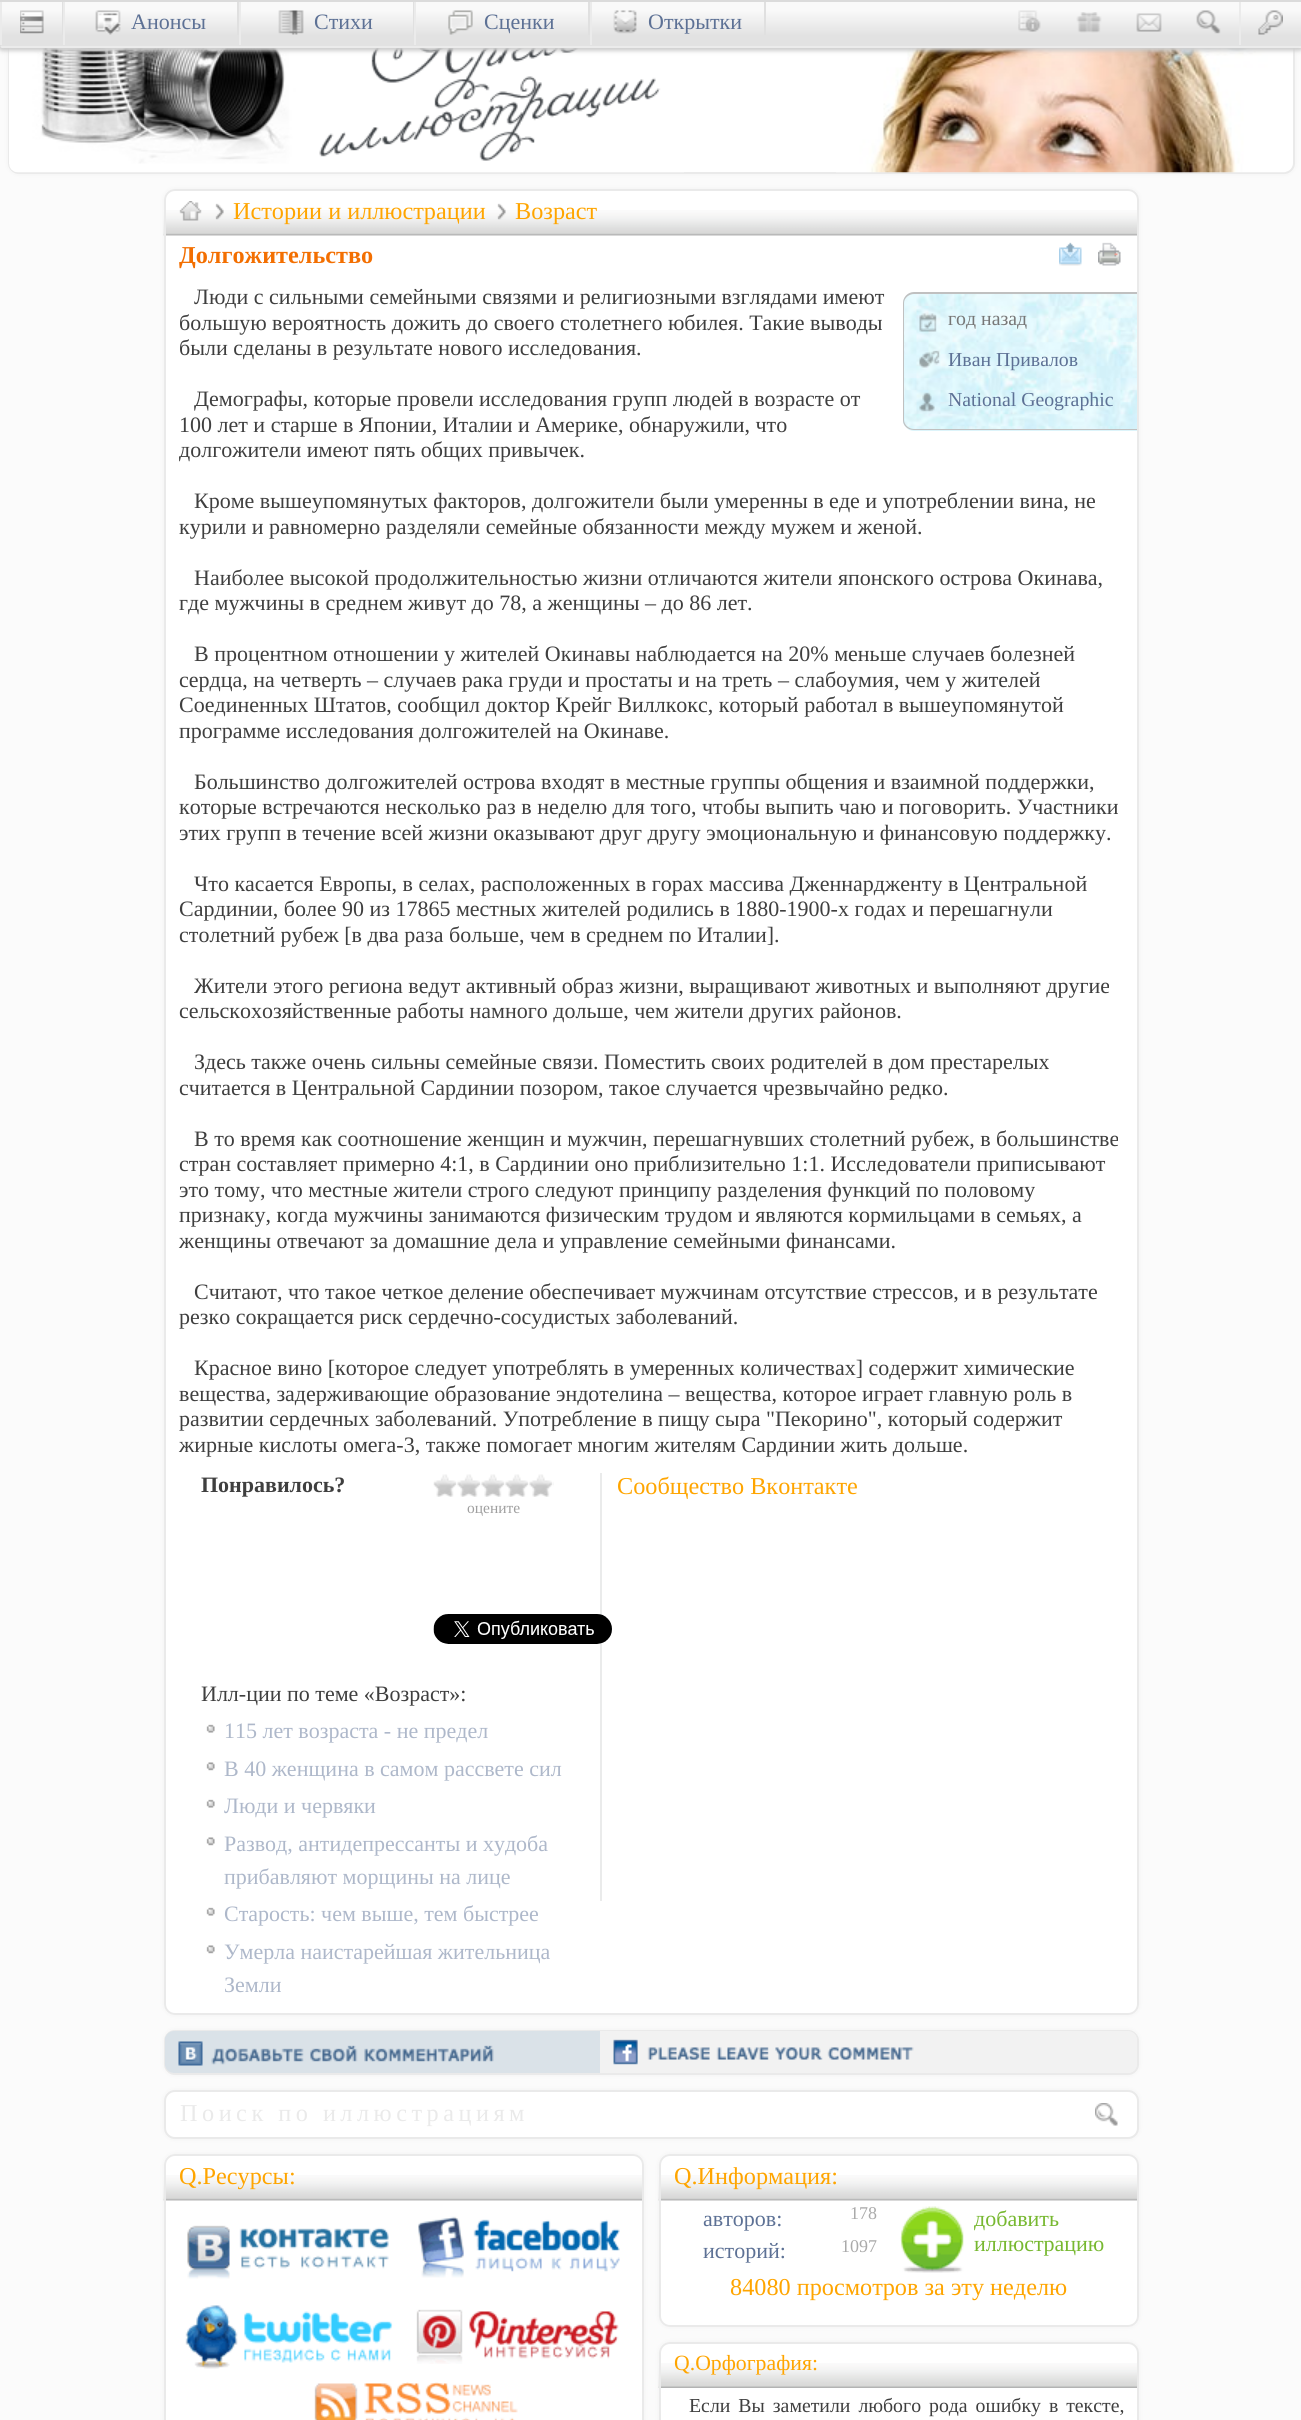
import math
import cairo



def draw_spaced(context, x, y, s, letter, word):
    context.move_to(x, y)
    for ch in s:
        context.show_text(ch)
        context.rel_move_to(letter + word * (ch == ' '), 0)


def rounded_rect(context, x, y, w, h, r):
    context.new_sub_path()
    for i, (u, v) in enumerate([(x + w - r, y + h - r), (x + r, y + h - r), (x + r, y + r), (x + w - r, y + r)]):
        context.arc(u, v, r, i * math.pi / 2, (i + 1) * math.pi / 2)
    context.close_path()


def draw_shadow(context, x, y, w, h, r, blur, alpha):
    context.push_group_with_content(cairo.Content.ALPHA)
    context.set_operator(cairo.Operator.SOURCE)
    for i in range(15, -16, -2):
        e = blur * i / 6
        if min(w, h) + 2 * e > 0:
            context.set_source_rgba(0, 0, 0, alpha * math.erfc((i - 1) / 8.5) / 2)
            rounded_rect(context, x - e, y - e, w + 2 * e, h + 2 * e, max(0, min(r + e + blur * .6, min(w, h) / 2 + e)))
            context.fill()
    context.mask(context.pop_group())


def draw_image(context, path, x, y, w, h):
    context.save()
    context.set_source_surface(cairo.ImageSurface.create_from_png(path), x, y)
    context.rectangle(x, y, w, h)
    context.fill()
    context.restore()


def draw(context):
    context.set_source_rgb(251 / 255, 251 / 255, 251 / 255)
    context.paint()
    context.set_source_rgb(229 / 255, 229 / 255, 229 / 255)
    draw_shadow(context, 8, -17, 1287, 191, 11, 2, 0.5)
    context.set_source_rgb(1, 1, 1)
    rounded_rect(context, 9, -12, 1285, 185, 10)
    context.fill_preserve()
    context.set_source_rgb(234 / 255, 234 / 255, 234 / 255)
    context.stroke()
    draw_image(context, "images/11.png", 9, 48, 300, 125)
    draw_image(context, "images/12.png", 309, 48, 375, 125)
    draw_image(context, "images/13.png", 836, 48, 450, 125)
    context.set_source_rgb(206 / 255, 206 / 255, 206 / 255)
    draw_shadow(context, -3, 0, 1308, 51, 6, 2, 1)
    gradient = cairo.LinearGradient(651, 1.5, 651, 47)
    gradient.add_color_stop_rgba(0.19, 249 / 255, 249 / 255, 249 / 255, 1)
    gradient.add_color_stop_rgba(0.75, 226 / 255, 226 / 255, 226 / 255, 1)
    context.set_source(gradient)
    context.rectangle(0, 2, 1301, 45)
    context.fill()
    context.save()
    context.new_path()
    context.move_to(-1, 0)
    context.line_to(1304, 0)
    context.line_to(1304, 43)
    context.curve_to(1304, 46, 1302, 48, 1299, 48)
    context.line_to(4, 48)
    context.curve_to(1, 48, -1, 46, -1, 43)
    context.close_path()
    context.clip()
    gradient = cairo.LinearGradient(651, 46, 651, 92)
    gradient.add_color_stop_rgba(0.19, 249 / 255, 249 / 255, 249 / 255, 1)
    gradient.add_color_stop_rgba(0.75, 226 / 255, 226 / 255, 226 / 255, 1)
    context.set_source(gradient)
    context.rectangle(0, 47, 1301, 1)
    context.fill()
    context.restore()
    context.set_source_rgb(219 / 255, 219 / 255, 219 / 255)
    context.new_path()
    context.move_to(-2, 0)
    context.line_to(0, 2)
    context.line_to(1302, 2)
    context.line_to(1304, 0)
    context.close_path()
    context.fill()
    context.set_source_rgb(235 / 255, 235 / 255, 235 / 255)
    context.new_path()
    context.move_to(3, 48)
    context.line_to(1299, 48)
    context.line_to(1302, 47)
    context.line_to(1301, 46)
    context.line_to(1299, 46)
    context.line_to(3, 46)
    context.line_to(1, 46)
    context.line_to(0, 47)
    context.close_path()
    context.fill()
    context.set_source_rgb(219 / 255, 219 / 255, 219 / 255)
    context.new_path()
    context.move_to(0, 2)
    context.line_to(0, 44)
    context.line_to(1, 46)
    context.line_to(0, 47)
    context.line_to(-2, 45)
    context.line_to(-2, 0)
    context.close_path()
    context.fill()
    context.set_source_rgb(224 / 255, 224 / 255, 224 / 255)
    context.rectangle(62, 2, 1, 33)
    context.fill()
    context.set_source_rgb(235 / 255, 235 / 255, 235 / 255)
    context.rectangle(0, 2, 2, 43)
    context.fill()
    draw_image(context, "images/1.png", 20, 10, 24, 24)
    context.set_source_rgb(224 / 255, 224 / 255, 224 / 255)
    context.rectangle(237, 2, 2, 33)
    context.fill()
    context.set_source_rgb(235 / 255, 235 / 255, 235 / 255)
    context.rectangle(63, 2, 2, 43)
    context.fill()
    draw_image(context, "images/2.png", 95, 10, 26, 25)
    context.set_source_rgb(224 / 255, 224 / 255, 224 / 255)
    context.rectangle(413, 2, 1, 33)
    context.fill()
    context.set_source_rgb(235 / 255, 235 / 255, 235 / 255)
    context.rectangle(239, 2, 2, 43)
    context.fill()
    draw_image(context, "images/3.png", 278, 10, 26, 25)
    context.set_source_rgb(224 / 255, 224 / 255, 224 / 255)
    context.rectangle(588, 2, 2, 33)
    context.fill()
    context.set_source_rgb(235 / 255, 235 / 255, 235 / 255)
    context.rectangle(414, 2, 2, 43)
    context.fill()
    draw_image(context, "images/4.png", 448, 10, 25, 25)
    context.set_source_rgb(224 / 255, 224 / 255, 224 / 255)
    context.rectangle(764, 2, 2, 33)
    context.fill()
    context.set_source_rgb(235 / 255, 235 / 255, 235 / 255)
    context.rectangle(590, 2, 2, 43)
    context.fill()
    draw_image(context, "images/5.png", 613, 10, 24, 24)
    draw_image(context, "images/6.png", 1018, 10, 23, 22)
    draw_image(context, "images/7.png", 1076, 12, 26, 21)
    draw_image(context, "images/8.png", 1136, 13, 26, 19)
    draw_image(context, "images/9.png", 1196, 10, 25, 24)
    context.rectangle(1239, 2, 2, 43)
    context.fill()
    draw_image(context, "images/10.png", 1258, 10, 25, 25)
    context.set_source_rgb(229 / 255, 229 / 255, 229 / 255)
    draw_shadow(context, 164, 189, 975, 1826, 11, 2, 0.5)
    context.set_source_rgb(1, 1, 1)
    rounded_rect(context, 164, 189, 975, 1826, 11)
    context.fill()
    draw_image(context, "images/14.png", 163, 210, 974, 26)
    rounded_rect(context, 165, 190, 973, 1824, 10)
    context.set_source_rgb(234 / 255, 234 / 255, 234 / 255)
    context.stroke()
    draw_image(context, "images/15.png", 179, 201, 23, 20)
    draw_image(context, "images/16.png", 215, 203, 9, 17)
    draw_image(context, "images/17.png", 497, 203, 9, 17)
    draw_image(context, "images/18.png", 1059, 242, 23, 24)
    draw_image(context, "images/19.png", 1098, 242, 23, 24)
    context.set_source_rgb(221 / 255, 244 / 255, 250 / 255)
    context.new_path()
    context.move_to(914, 293)
    context.line_to(1137, 293)
    context.line_to(1137, 431)
    context.line_to(914, 431)
    context.curve_to(908, 431, 903, 426, 903, 420)
    context.line_to(903, 304)
    context.curve_to(903, 298, 908, 293, 914, 293)
    context.close_path()
    context.fill()
    draw_image(context, "images/20.png", 903, 292, 234, 138)
    context.set_source_rgb(192 / 255, 192 / 255, 192 / 255)
    context.set_fill_rule(cairo.FillRule.EVEN_ODD)
    context.new_path()
    context.move_to(914, 292)
    context.line_to(1137, 292)
    context.line_to(1137, 430)
    context.line_to(914, 430)
    context.curve_to(908, 430, 903, 426, 903, 420)
    context.line_to(903, 303)
    context.curve_to(903, 297, 908, 292, 914, 292)
    context.close_path()
    context.move_to(914, 294)
    context.line_to(1137, 294)
    context.line_to(1137, 429)
    context.line_to(914, 429)
    context.curve_to(909, 429, 904, 425, 904, 420)
    context.line_to(904, 303)
    context.curve_to(904, 298, 909, 294, 914, 294)
    context.close_path()
    context.fill()
    draw_image(context, "images/21.png", 919, 313, 18, 19)
    draw_image(context, "images/22.png", 919, 350, 21, 18)
    draw_image(context, "images/23.png", 919, 392, 16, 20)
    draw_image(context, "images/24.png", 433, 1474, 121, 23)
    context.set_source_rgb(234 / 255, 235 / 255, 235 / 255)
    context.rectangle(600, 1473, 2, 428)
    context.fill()
    draw_image(context, "images/25.png", 433, 1614, 179, 30)
    draw_image(context, "images/26.png", 206, 1724, 9, 9)
    draw_image(context, "images/27.png", 206, 1762, 9, 9)
    draw_image(context, "images/26.png", 206, 1799, 9, 9)
    draw_image(context, "images/27.png", 206, 1837, 9, 9)
    draw_image(context, "images/26.png", 206, 1907, 9, 9)
    draw_image(context, "images/27.png", 206, 1945, 9, 9)
    context.set_source_rgb(229 / 255, 229 / 255, 229 / 255)
    draw_shadow(context, 164, 2030, 975, 45, 11, 2, 0.5)
    rounded_rect(context, 165, 2031, 973, 43, 10)
    context.set_source_rgb(234 / 255, 234 / 255, 234 / 255)
    context.stroke()
    context.set_source_rgb(218 / 255, 226 / 255, 232 / 255)
    context.new_path()
    context.move_to(174, 2031)
    context.line_to(600, 2031)
    context.line_to(600, 2073)
    context.line_to(174, 2073)
    context.curve_to(169, 2073, 165, 2069, 165, 2064)
    context.line_to(165, 2040)
    context.curve_to(165, 2035, 169, 2031, 174, 2031)
    context.close_path()
    context.fill()
    draw_image(context, "images/28.png", 165, 2037, 329, 29)
    context.set_source_rgb(242 / 255, 242 / 255, 242 / 255)
    context.new_path()
    context.move_to(600, 2031)
    context.line_to(1128, 2031)
    context.curve_to(1133, 2031, 1137, 2035, 1137, 2040)
    context.line_to(1137, 2064)
    context.curve_to(1137, 2069, 1133, 2073, 1128, 2073)
    context.line_to(600, 2073)
    context.close_path()
    context.fill()
    draw_image(context, "images/29.png", 613, 2039, 301, 26)
    context.set_source_rgb(229 / 255, 229 / 255, 229 / 255)
    draw_shadow(context, 164, 2090, 975, 49, 11, 2, 0.5)
    context.set_source_rgb(1, 1, 1)
    rounded_rect(context, 165, 2091, 973, 47, 10)
    context.fill_preserve()
    context.set_source_rgb(234 / 255, 234 / 255, 234 / 255)
    context.stroke()
    draw_image(context, "images/30.png", 1095, 2103, 23, 23)
    context.set_source_rgb(229 / 255, 229 / 255, 229 / 255)
    draw_shadow(context, 164, 2154, 480, 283, 11, 2, 0.5)
    context.set_source_rgb(1, 1, 1)
    rounded_rect(context, 164, 2154, 480, 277, 11)
    context.fill()
    draw_image(context, "images/31.png", 163, 2175, 479, 26)
    rounded_rect(context, 165, 2155, 478, 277, 10)
    context.set_source_rgb(234 / 255, 234 / 255, 234 / 255)
    context.stroke()
    draw_image(context, "images/32.png", 187, 2225, 202, 54)
    draw_image(context, "images/33.png", 418, 2216, 202, 62)
    draw_image(context, "images/34.png", 185, 2305, 208, 64)
    draw_image(context, "images/35.png", 416, 2309, 203, 55)
    draw_image(context, "images/36.png", 314, 2382, 204, 38)
    context.set_source_rgb(229 / 255, 229 / 255, 229 / 255)
    draw_shadow(context, 659, 2154, 480, 173, 11, 2, 0.5)
    context.set_source_rgb(1, 1, 1)
    rounded_rect(context, 659, 2154, 480, 173, 11)
    context.fill()
    draw_image(context, "images/37.png", 658, 2175, 479, 26)
    rounded_rect(context, 660, 2155, 478, 171, 10)
    context.set_source_rgb(234 / 255, 234 / 255, 234 / 255)
    context.stroke()
    draw_image(context, "images/38.png", 900, 2206, 64, 67)
    context.set_source_rgb(229 / 255, 229 / 255, 229 / 255)
    draw_shadow(context, 659, 2342, 480, 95, 11, 2, 0.5)
    context.set_source_rgb(1, 1, 1)
    rounded_rect(context, 659, 2342, 480, 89, 11)
    context.fill()
    draw_image(context, "images/39.png", 658, 2363, 479, 25)
    rounded_rect(context, 660, 2343, 478, 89, 10)
    context.set_source_rgb(234 / 255, 234 / 255, 234 / 255)
    context.stroke()
    context.select_font_face("Liberation Serif")
    context.set_font_size(22)
    context.set_source_rgb(93 / 255, 113 / 255, 149 / 255)
    context.move_to(131, 29)
    context.show_text("Анонсы")
    context.move_to(314, 29)
    context.show_text("Стихи")
    context.move_to(484, 29)
    context.show_text("Сценки")
    context.move_to(648, 29)
    context.show_text("Открытки")
    context.set_font_size(24.25)
    context.set_source_rgb(1, 165 / 255, 0)
    context.move_to(233, 219)
    context.show_text("Истории и иллюстрации")
    context.move_to(515, 219)
    context.show_text("Возраст")
    context.save()
    context.set_fill_rule(cairo.FillRule.WINDING)
    context.rectangle(179, 242, 873, 27)
    context.clip()
    context.select_font_face("Liberation Serif", cairo.FontSlant.NORMAL, cairo.FontWeight.BOLD)
    context.set_source_rgb(243 / 255, 111 / 255, 1 / 255)
    context.move_to(179, 263)
    context.show_text("Долгожительство")
    context.restore()
    context.set_font_size(22)
    context.set_source_rgb(63 / 255, 63 / 255, 63 / 255)
    context.move_to(194, 304)
    context.show_text("Люди с сильными семейными связями и религиозными взглядами имеют")
    context.move_to(179, 330)
    context.show_text("большую вероятность дожить до своего столетнего юбилея. Такие выводы")
    context.move_to(179, 355)
    context.show_text("были сделаны в результате нового исследования.")
    context.set_font_size(19.8)
    context.set_source_rgb(119 / 255, 119 / 255, 119 / 255)
    context.move_to(948, 325)
    context.show_text("год назад")
    context.set_source_rgb(93 / 255, 113 / 255, 149 / 255)
    context.move_to(948, 366)
    context.show_text("Иван Привалов")
    context.move_to(948, 406)
    context.show_text("National Geographic")
    context.set_font_size(22)
    context.set_source_rgb(63 / 255, 63 / 255, 63 / 255)
    context.move_to(194, 406)
    context.show_text("Демографы, которые провели исследования групп людей в возрасте от")
    context.move_to(179, 432)
    context.show_text("100 лет и старше в Японии, Италии и Америке, обнаружили, что")
    context.move_to(179, 457)
    context.show_text("долгожители имеют пять общих привычек.")
    context.move_to(194, 508)
    context.show_text("Кроме вышеупомянутых факторов, долгожители были умеренны в еде и употреблении вина, не")
    context.move_to(179, 534)
    context.show_text("курили и равномерно разделяли семейные обязанности между мужем и женой.")
    context.move_to(194, 585)
    context.show_text("Наиболее высокой продолжительностью жизни отличаются жители японского острова Окинава,")
    context.move_to(179, 610)
    context.show_text("где мужчины в среднем живут до 78, а женщины – до 86 лет.")
    context.move_to(194, 661)
    context.show_text("В процентном отношении у жителей Окинавы наблюдается на 20% меньше случаев болезней")
    context.move_to(179, 687)
    context.show_text("сердца, на четверть – случаев рака груди и простаты и на треть – слабоумия, чем у жителей")
    context.move_to(179, 712)
    context.show_text("Соединенных Штатов, сообщил доктор Крейг Виллкокс, который работал в вышеупомянутой")
    context.move_to(179, 738)
    context.show_text("программе исследования долгожителей на Окинаве.")
    context.move_to(194, 789)
    context.show_text("Большинство долгожителей острова входят в местные группы общения и взаимной поддержки,")
    context.move_to(179, 814)
    context.show_text("которые встречаются несколько раз в неделю для того, чтобы выпить чаю и поговорить. Участники")
    context.move_to(179, 840)
    context.show_text("этих групп в течение всей жизни оказывают друг другу эмоциональную и финансовую поддержку.")
    context.move_to(194, 891)
    context.show_text("Что касается Европы, в селах, расположенных в горах массива Дженнардженту в Центральной")
    context.move_to(179, 916)
    context.show_text("Сардинии, более 90 из 17865 местных жителей родились в 1880-1900-х годах и перешагнули")
    context.move_to(179, 942)
    context.show_text("столетний рубеж [в два раза больше, чем в среднем по Италии].")
    context.move_to(194, 993)
    context.show_text("Жители этого региона ведут активный образ жизни, выращивают животных и выполняют другие")
    context.move_to(179, 1018)
    context.show_text("сельскохозяйственные работы намного дольше, чем жители других районов.")
    context.move_to(194, 1069)
    context.show_text("Здесь также очень сильны семейные связи. Поместить своих родителей в дом престарелых")
    context.move_to(179, 1095)
    context.show_text("считается в Центральной Сардинии позором, такое случается чрезвычайно редко.")
    context.move_to(194, 1146)
    context.show_text("В то время как соотношение женщин и мужчин, перешагнувших столетний рубеж, в большинстве")
    context.move_to(179, 1171)
    context.show_text("стран составляет примерно 4:1, в Сардинии оно приблизительно 1:1. Исследователи приписывают")
    context.move_to(179, 1197)
    context.show_text("это тому, что местные жители строго следуют принципу разделения функций по половому")
    context.move_to(179, 1222)
    context.show_text("признаку, когда мужчины занимаются физическим трудом и являются кормильцами в семьях, а")
    context.move_to(179, 1248)
    context.show_text("женщины отвечают за домашние дела и управление семейными финансами.")
    context.move_to(194, 1299)
    context.show_text("Считают, что такое четкое деление обеспечивает мужчинам отсутствие стрессов, и в результате")
    context.move_to(179, 1324)
    context.show_text("резко сокращается риск сердечно-сосудистых заболеваний.")
    context.move_to(194, 1375)
    context.show_text("Красное вино [которое следует употреблять в умеренных количествах] содержит химические")
    context.move_to(179, 1401)
    context.show_text("вещества, задерживающие образование эндотелина – вещества, которое играет главную роль в")
    context.move_to(179, 1426)
    context.show_text("развитии сердечных заболеваний. Употребление в пищу сыра \"Пекорино\", который содержит")
    context.move_to(179, 1452)
    context.show_text("жирные кислоты омега-3, также помогает многим жителям Сардинии жить дольше.")
    context.select_font_face("Liberation Serif", cairo.FontSlant.NORMAL, cairo.FontWeight.BOLD)
    context.move_to(201, 1492)
    context.show_text("Понравилось?")
    context.select_font_face("Liberation Serif")
    context.set_font_size(15.5)
    context.set_source_rgb(159 / 255, 159 / 255, 159 / 255)
    context.move_to(467, 1513)
    context.show_text("оцените")
    context.set_font_size(22)
    context.set_source_rgb(63 / 255, 63 / 255, 63 / 255)
    context.move_to(201, 1701)
    context.show_text("Илл-ции по теме «Возраст»:")
    context.set_source_rgb(174 / 255, 184 / 255, 202 / 255)
    context.move_to(224, 1738)
    context.show_text("115 лет возраста - не предел")
    context.move_to(224, 1776)
    context.show_text("В 40 женщина в самом рассвете сил")
    context.move_to(224, 1813)
    context.show_text("Люди и червяки")
    context.move_to(224, 1851)
    context.show_text("Развод, антидепрессанты и худоба")
    context.move_to(224, 1884)
    context.show_text("прибавляют морщины на лице")
    context.move_to(224, 1921)
    context.show_text("Старость: чем выше, тем быстрее")
    context.move_to(224, 1959)
    context.show_text("Умерла наистарейшая жительница")
    context.move_to(224, 1992)
    context.show_text("Земли")
    context.set_font_size(24.25)
    context.set_source_rgb(1, 165 / 255, 0)
    context.move_to(617, 1494)
    context.show_text("Сообщество Вконтакте")
    context.set_source_rgb(234 / 255, 234 / 255, 234 / 255)
    draw_spaced(context, 180, 2121, "Поиск по иллюстрациям", 4.5, 0)
    context.set_source_rgb(1, 165 / 255, 0)
    context.move_to(179, 2184)
    context.show_text("Q.Ресурсы:")
    context.move_to(674, 2184)
    context.show_text("Q.Информация:")
    context.set_font_size(18)
    context.set_source_rgb(170 / 255, 170 / 255, 170 / 255)
    context.move_to(850, 2219)
    context.show_text("178")
    context.set_font_size(22)
    context.set_source_rgb(93 / 255, 113 / 255, 149 / 255)
    context.move_to(703, 2226)
    context.show_text("авторов:")
    context.move_to(703, 2258)
    context.show_text("историй:")
    context.set_font_size(18)
    context.set_source_rgb(170 / 255, 170 / 255, 170 / 255)
    context.move_to(841, 2252)
    context.show_text("1097")
    context.set_font_size(22)
    context.set_source_rgb(119 / 255, 184 / 255, 48 / 255)
    context.move_to(974, 2226)
    context.show_text("добавить")
    context.move_to(974, 2251)
    context.show_text("иллюстрацию")
    context.set_font_size(24.25)
    context.set_source_rgb(1, 165 / 255, 0)
    context.move_to(730, 2295)
    context.show_text("84080 просмотров за эту неделю")
    context.set_font_size(21.75)
    context.move_to(674, 2370)
    context.show_text("Q.Орфография:")
    context.set_font_size(19.8)
    context.set_source_rgb(63 / 255, 63 / 255, 63 / 255)
    draw_spaced(context, 689, 2412, "Если Вы заметили любого рода ошибку в тексте,", 0, 3)


surface = cairo.ImageSurface(cairo.Format.RGB24, 1301, 2420)
context = cairo.Context(surface)
options = cairo.FontOptions()
options.set_hint_metrics(cairo.HintMetrics.OFF)
options.set_hint_style(cairo.HintStyle.NONE)
context.set_font_options(options)
context.set_miter_limit(4)
draw(context)
surface.write_to_png("out.png")
